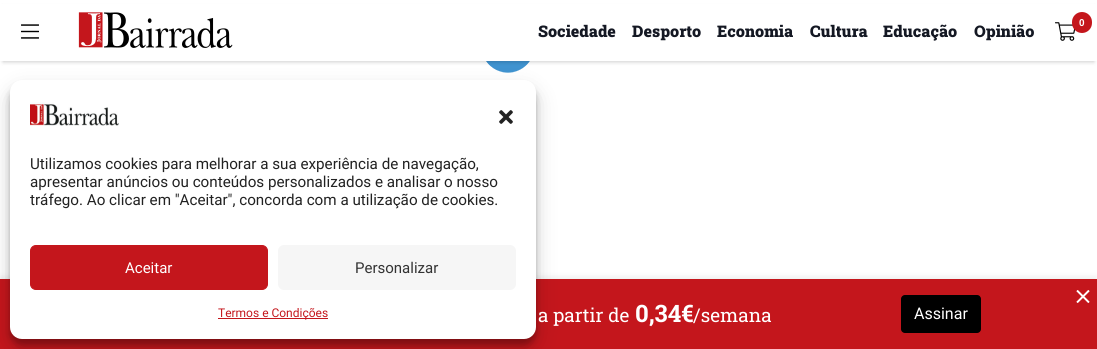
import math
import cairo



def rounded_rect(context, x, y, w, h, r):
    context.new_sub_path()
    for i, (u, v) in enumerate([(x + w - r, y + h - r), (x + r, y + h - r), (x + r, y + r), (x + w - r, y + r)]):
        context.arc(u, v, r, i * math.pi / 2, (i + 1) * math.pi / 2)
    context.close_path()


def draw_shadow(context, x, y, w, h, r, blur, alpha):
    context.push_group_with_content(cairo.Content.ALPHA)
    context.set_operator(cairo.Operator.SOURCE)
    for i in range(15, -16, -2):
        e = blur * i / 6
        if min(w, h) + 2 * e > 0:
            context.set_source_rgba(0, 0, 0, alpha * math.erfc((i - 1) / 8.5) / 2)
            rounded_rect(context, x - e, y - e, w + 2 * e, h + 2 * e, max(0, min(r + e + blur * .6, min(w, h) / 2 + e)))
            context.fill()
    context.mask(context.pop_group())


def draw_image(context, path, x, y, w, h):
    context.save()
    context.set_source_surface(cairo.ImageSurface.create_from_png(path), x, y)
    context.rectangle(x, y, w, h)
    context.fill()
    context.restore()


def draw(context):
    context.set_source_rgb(1, 1, 1)
    context.paint()
    draw_image(context, "images/6.png", 486, 61, 44, 12)
    context.set_source_rgb(0, 0, 0)
    draw_shadow(context, 3, 7, 1091, 55, 0, 2, 0.2)
    context.set_source_rgb(1, 1, 1)
    context.rectangle(0, 4, 1097, 57)
    context.fill()
    draw_image(context, "images/1.png", 21, 24, 18, 15)
    draw_image(context, "images/2.png", 78, 12, 155, 36)
    draw_image(context, "images/3.png", 1055, 22, 20, 19)
    context.set_source_rgb(196 / 255, 22 / 255, 28 / 255)
    rounded_rect(context, 1072, 12, 20, 21, 10)
    context.fill()
    context.set_source_rgb(0, 0, 0)
    draw_shadow(context, 0, 276, 1097, 70, 0, 2.5, 0.06)
    context.set_source_rgb(196 / 255, 22 / 255, 28 / 255)
    context.rectangle(0, 279, 1097, 70)
    context.fill()
    context.set_source_rgb(0, 0, 0)
    draw_shadow(context, 10, 86, 526, 259, 12, 3, 0.23)
    draw_shadow(context, 10, 90, 526, 259, 12, 10, 0.19)
    context.set_source_rgb(1, 1, 1)
    rounded_rect(context, 10, 80, 526, 259, 12)
    context.fill()
    draw_image(context, "images/4.png", 30, 102, 89, 24)
    draw_image(context, "images/5.png", 499, 110, 14, 14)
    context.set_source_rgb(196 / 255, 22 / 255, 28 / 255)
    rounded_rect(context, 30.5, 245.5, 237, 44, 5.5)
    context.fill_preserve()
    context.set_line_width(1)
    context.stroke()
    context.set_source_rgb(246 / 255, 246 / 255, 246 / 255)
    rounded_rect(context, 278, 245, 238, 45, 6)
    context.fill()
    context.set_source_rgb(196 / 255, 22 / 255, 28 / 255)
    context.rectangle(218, 318, 110, 1)
    context.fill()
    draw_image(context, "images/7.png", 1076, 290, 14, 13)
    context.set_source_rgb(0, 0, 0)
    rounded_rect(context, 901, 295, 80, 38, 4)
    context.fill()
    context.select_font_face("Liberation Sans", cairo.FontSlant.NORMAL, cairo.FontWeight.BOLD)
    context.set_font_size(10)
    context.set_source_rgb(1, 1, 1)
    context.move_to(1079, 26)
    context.show_text("0")
    context.select_font_face("Roboto Slab Black")
    context.set_font_size(16)
    context.set_source_rgb(20 / 255, 24 / 255, 35 / 255)
    context.move_to(538, 37)
    context.show_text("Sociedade")
    context.move_to(632, 37)
    context.show_text("Desporto")
    context.move_to(717, 37)
    context.show_text("Economia")
    context.move_to(810, 37)
    context.show_text("Cultura")
    context.move_to(883, 37)
    context.show_text("Educação")
    context.move_to(974, 37)
    context.show_text("Opinião")
    context.select_font_face("Roboto")
    context.set_font_size(15.2)
    context.set_source_rgb(34 / 255, 34 / 255, 34 / 255)
    context.move_to(30, 169)
    context.show_text("Utilizamos cookies para melhorar a sua experiência de navegação,")
    context.move_to(30, 187)
    context.show_text("apresentar anúncios ou conteúdos personalizados e analisar o nosso")
    context.move_to(30, 205)
    context.show_text("tráfego. Ao clicar em \"Aceitar\", concorda com a utilização de cookies.")
    context.set_font_size(15)
    context.set_source_rgb(1, 1, 1)
    context.move_to(125, 273)
    context.show_text("Aceitar")
    context.set_source_rgb(51 / 255, 51 / 255, 51 / 255)
    context.move_to(355, 273)
    context.show_text("Personalizar")
    context.set_font_size(12)
    context.set_source_rgb(196 / 255, 22 / 255, 28 / 255)
    context.move_to(218, 317)
    context.show_text("Termos e Condições")
    context.select_font_face("Roboto Slab")
    context.set_font_size(19)
    context.set_source_rgb(1, 1, 1)
    context.move_to(538, 322)
    context.show_text("a partir de")
    context.select_font_face("Roboto Slab", cairo.FontSlant.NORMAL, cairo.FontWeight.BOLD)
    context.set_font_size(24)
    context.move_to(635, 322)
    context.show_text("0,34€")
    context.select_font_face("Roboto Slab")
    context.set_font_size(19)
    context.move_to(693, 322)
    context.show_text("/semana")
    context.select_font_face("Roboto")
    context.set_font_size(16)
    context.move_to(914, 319)
    context.show_text("Assinar")


surface = cairo.ImageSurface(cairo.Format.RGB24, 1097, 349)
context = cairo.Context(surface)
options = cairo.FontOptions()
options.set_hint_metrics(cairo.HintMetrics.OFF)
options.set_hint_style(cairo.HintStyle.NONE)
context.set_font_options(options)
context.set_miter_limit(4)
draw(context)
surface.write_to_png("out.png")
